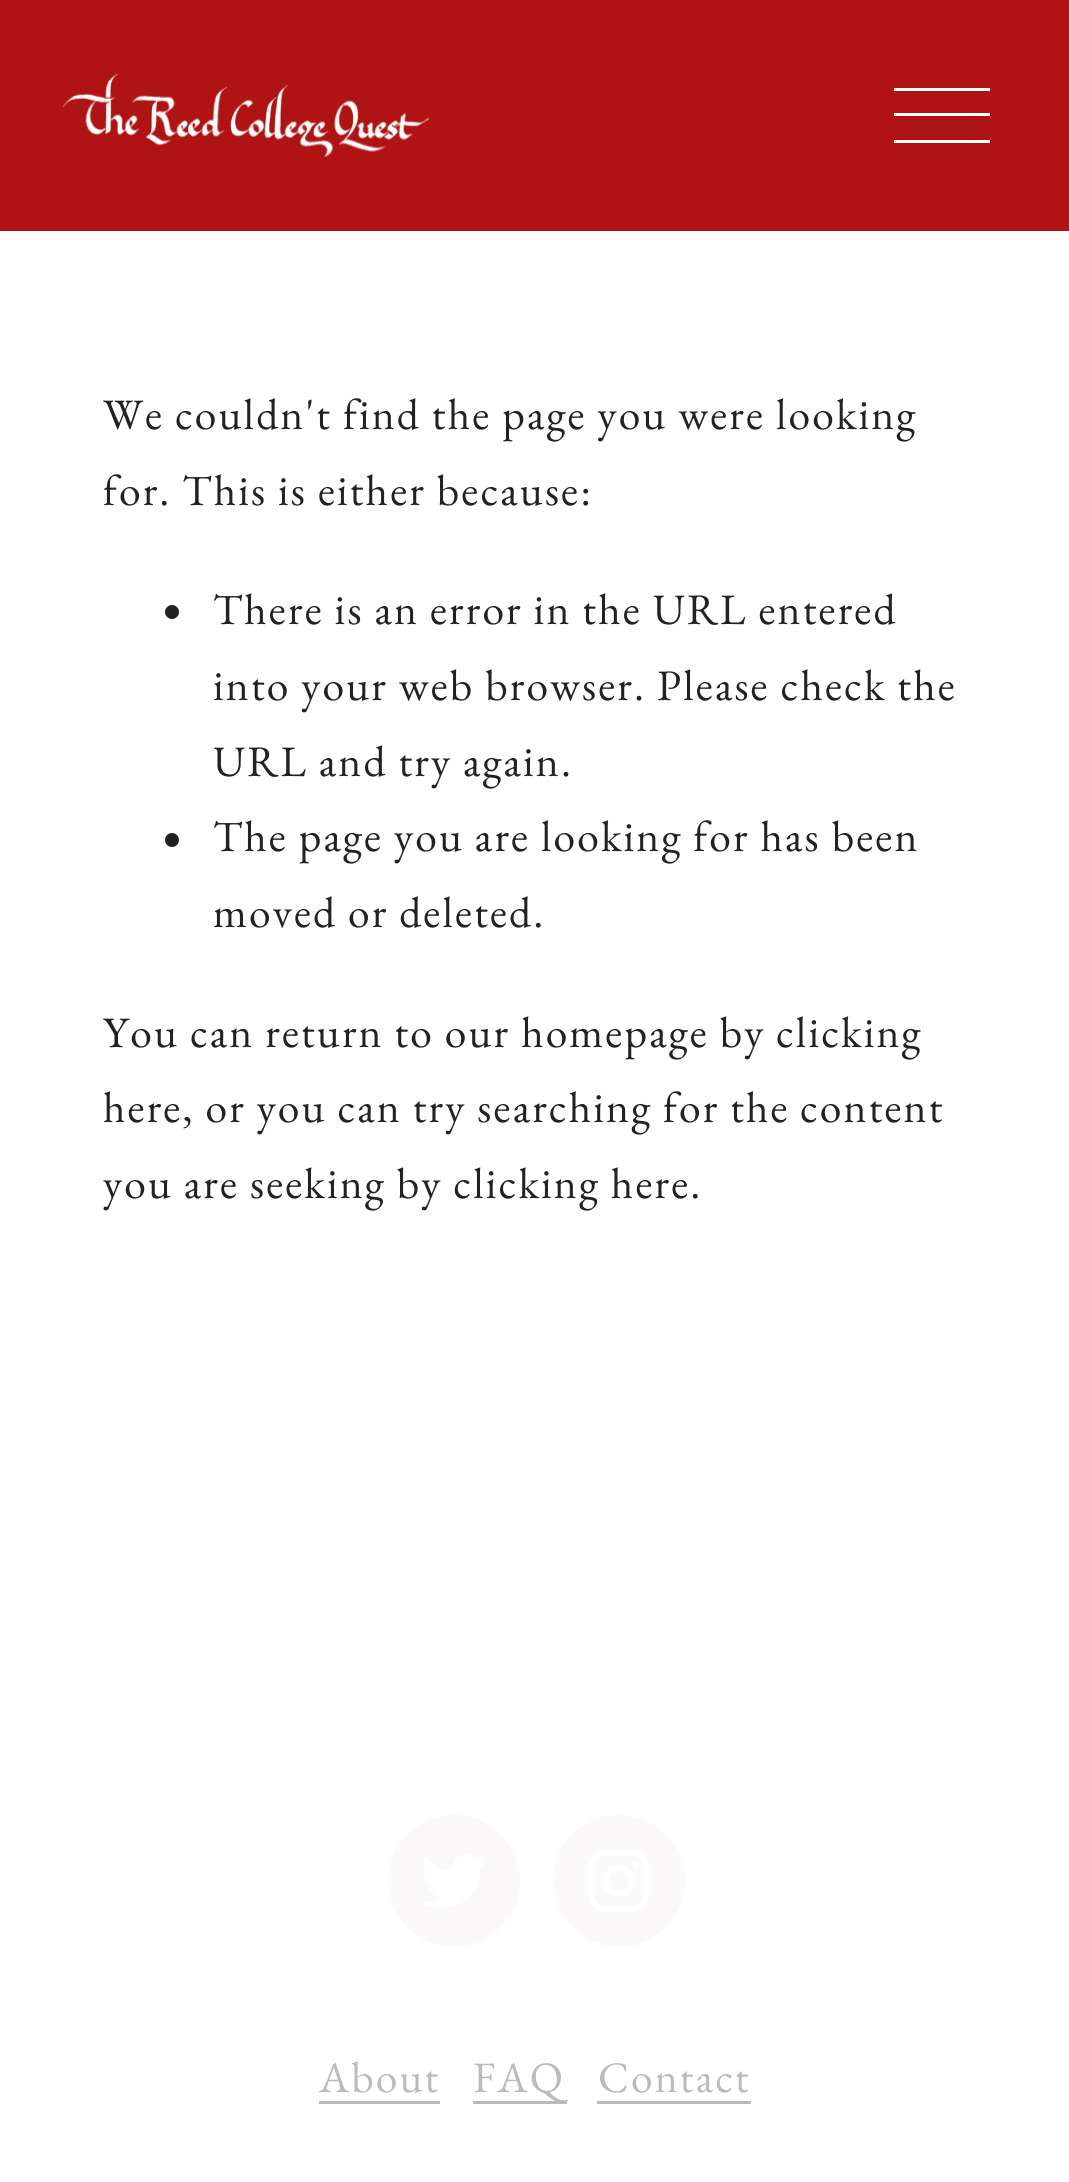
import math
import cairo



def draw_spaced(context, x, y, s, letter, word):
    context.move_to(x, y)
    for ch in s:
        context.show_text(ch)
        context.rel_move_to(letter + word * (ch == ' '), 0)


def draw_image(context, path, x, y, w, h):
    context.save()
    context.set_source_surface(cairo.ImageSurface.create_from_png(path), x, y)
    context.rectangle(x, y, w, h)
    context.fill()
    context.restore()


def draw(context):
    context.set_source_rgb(1, 1, 1)
    context.paint()
    context.set_source_rgb(175 / 255, 19 / 255, 19 / 255)
    context.rectangle(0, 0, 1069, 231)
    context.fill()
    draw_image(context, "images/1.png", 63, 73, 366, 84)
    context.set_source_rgb(1, 1, 1)
    context.rectangle(894, 88, 96, 3)
    context.fill()
    context.rectangle(894, 113, 96, 3)
    context.fill()
    context.rectangle(894, 140, 96, 3)
    context.fill()
    context.set_source_rgb(34 / 255, 34 / 255, 34 / 255)
    context.arc(172, 612, 7, 0, 2 * math.pi)
    context.fill()
    context.arc(172, 840, 7, 0, 2 * math.pi)
    context.fill()
    context.set_source_rgb(251 / 255, 249 / 255, 249 / 255)
    context.arc(454, 1881, 66, 0, 2 * math.pi)
    context.fill()
    draw_image(context, "images/2.png", 422, 1854, 64, 54)
    context.arc(619, 1881, 66, 0, 2 * math.pi)
    context.fill()
    draw_image(context, "images/3.png", 588, 1850, 62, 62)
    context.set_source_rgb(187 / 255, 187 / 255, 187 / 255)
    context.rectangle(319, 2101, 121, 3)
    context.fill()
    context.rectangle(473, 2101, 94, 3)
    context.fill()
    context.rectangle(597, 2101, 154, 3)
    context.fill()
    context.select_font_face("EB Garamond")
    context.set_font_size(43.5)
    context.set_source_rgb(34 / 255, 34 / 255, 34 / 255)
    draw_spaced(context, 103, 429, "We couldn't find the page you were looking", 2.15, 0)
    draw_spaced(context, 103, 505, "for. This is either because:", 2.15, 0)
    draw_spaced(context, 213, 624, "There is an error in the URL entered", 2.15, 0)
    draw_spaced(context, 213, 700, "into your web browser. Please check the", 2.15, 0)
    draw_spaced(context, 213, 776, "URL and try again.", 2.15, 0)
    draw_spaced(context, 213, 851, "The page you are looking for has been", 2.15, 0)
    draw_spaced(context, 213, 927, "moved or deleted.", 2.15, 0)
    draw_spaced(context, 103, 1047, "You can return to our homepage by", 2.15, 0)
    draw_spaced(context, 776, 1047, "clicking", 2.15, 0)
    draw_spaced(context, 103, 1122, "here, or you can try searching for the", 2.15, 0)
    draw_spaced(context, 800, 1122, "content", 2.15, 0)
    draw_spaced(context, 103, 1198, "you are seeking by clicking here.", 2.15, 0)
    context.set_source_rgb(187 / 255, 187 / 255, 187 / 255)
    draw_spaced(context, 319, 2092, "About", 2.15, 0)
    draw_spaced(context, 473, 2092, "FAQ", 2.15, 0)
    draw_spaced(context, 598, 2092, "Contact", 2.15, 0)


surface = cairo.ImageSurface(cairo.Format.RGB24, 1069, 2182)
context = cairo.Context(surface)
options = cairo.FontOptions()
options.set_hint_metrics(cairo.HintMetrics.OFF)
options.set_hint_style(cairo.HintStyle.NONE)
context.set_font_options(options)
context.set_miter_limit(4)
draw(context)
surface.write_to_png("out.png")
